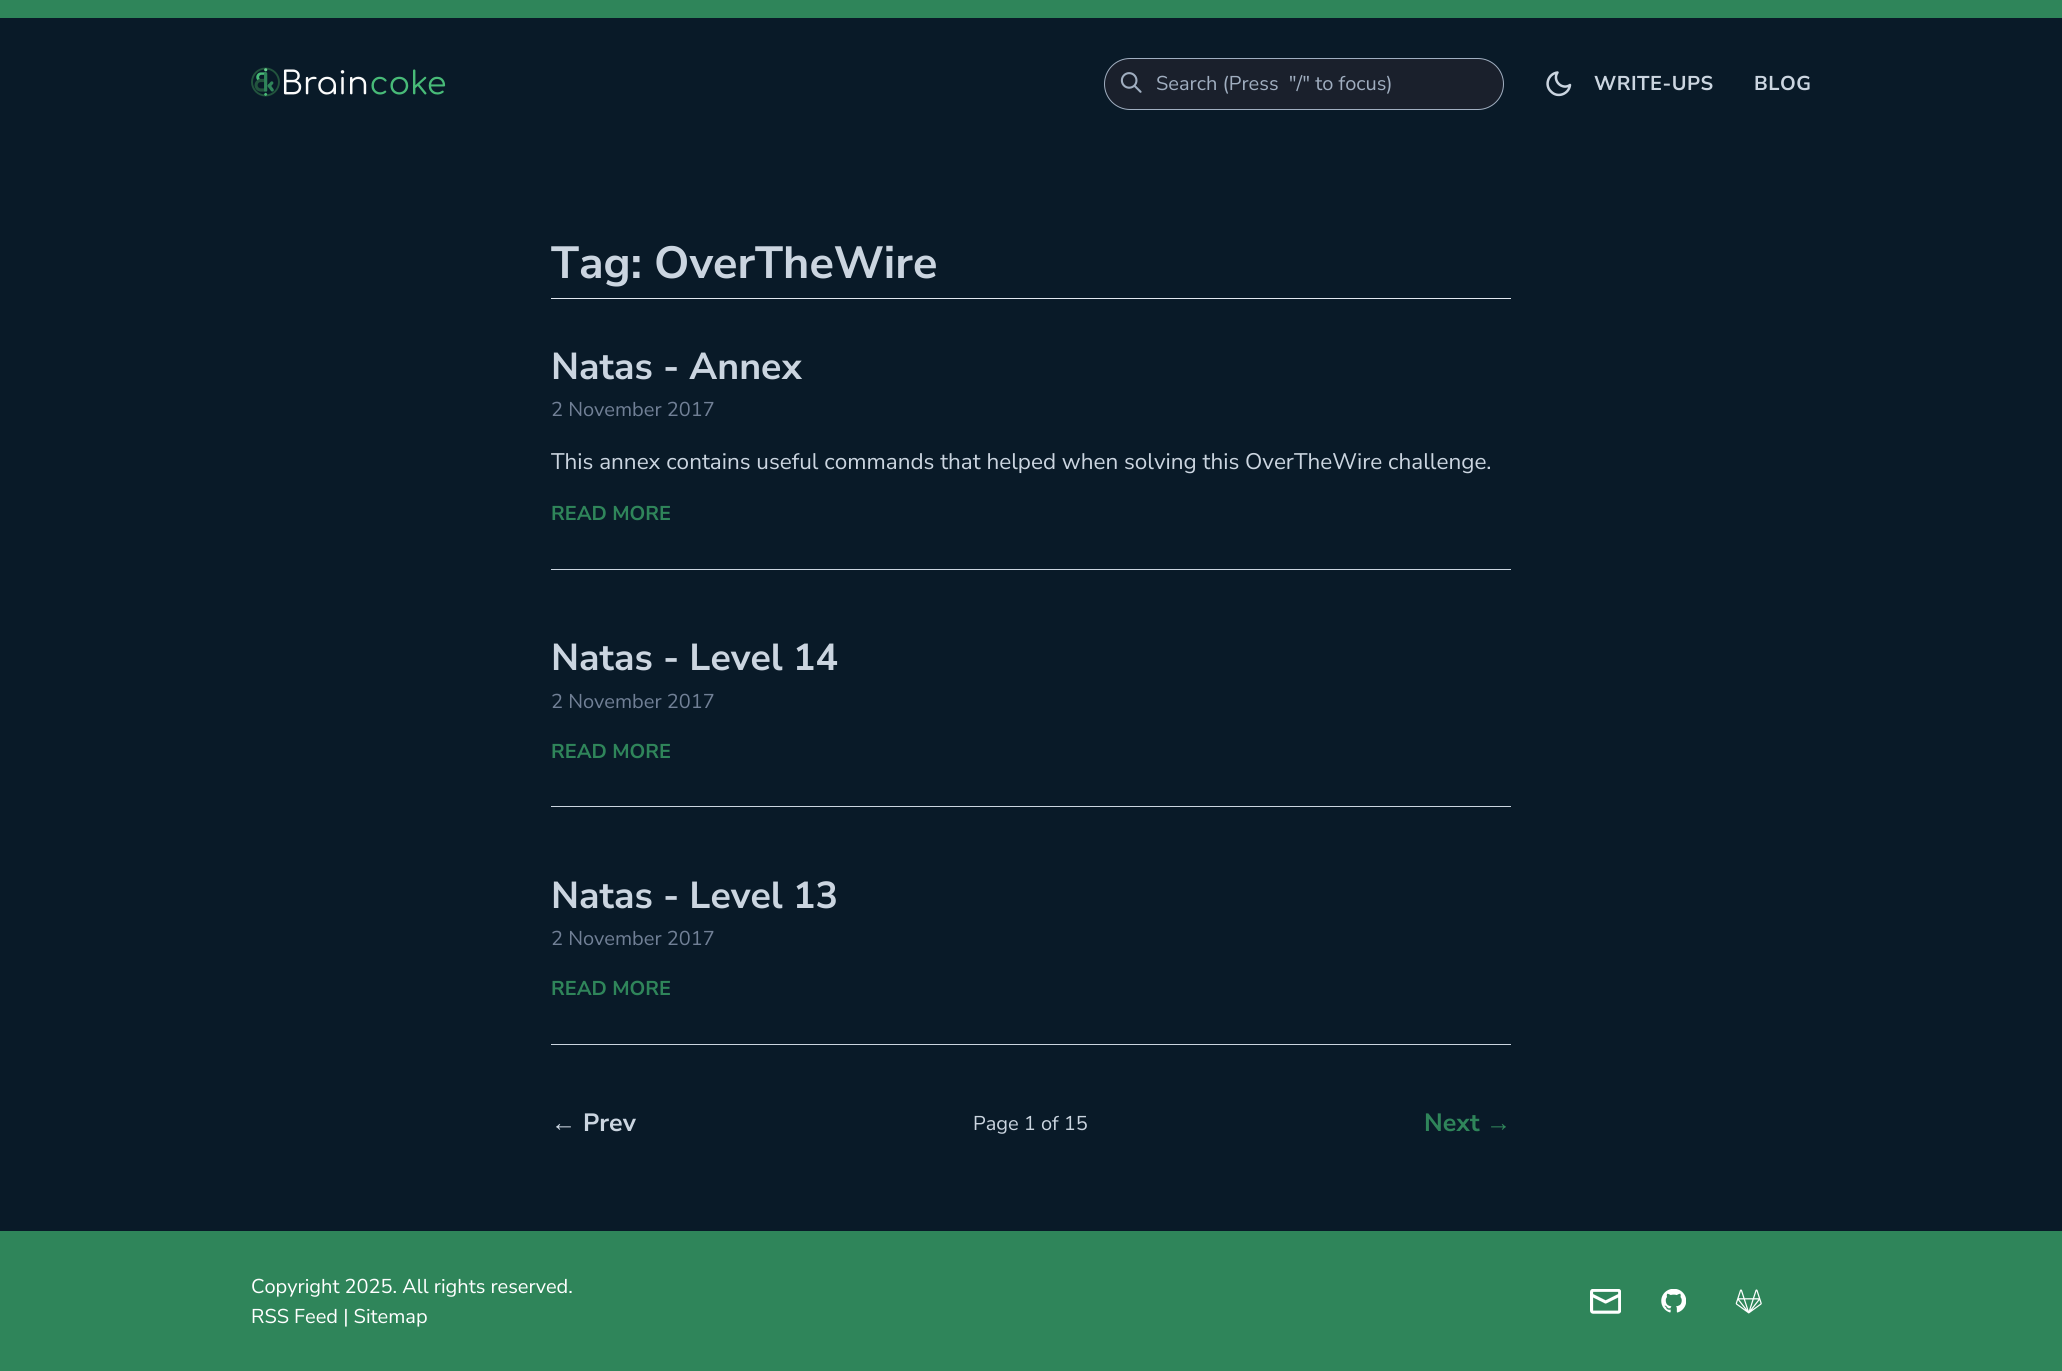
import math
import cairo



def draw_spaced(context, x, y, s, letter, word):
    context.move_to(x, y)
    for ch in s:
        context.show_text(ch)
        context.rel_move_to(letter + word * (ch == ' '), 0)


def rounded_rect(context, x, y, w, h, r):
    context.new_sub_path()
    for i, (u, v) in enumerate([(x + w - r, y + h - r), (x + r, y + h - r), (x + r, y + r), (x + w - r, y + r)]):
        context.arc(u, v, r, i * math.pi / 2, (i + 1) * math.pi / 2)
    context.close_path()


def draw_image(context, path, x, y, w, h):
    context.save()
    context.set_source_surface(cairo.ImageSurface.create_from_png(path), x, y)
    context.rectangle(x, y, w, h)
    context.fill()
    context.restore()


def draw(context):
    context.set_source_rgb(9 / 255, 26 / 255, 40 / 255)
    context.paint()
    context.set_source_rgb(47 / 255, 133 / 255, 90 / 255)
    context.rectangle(0, 0, 2062, 18)
    context.fill()
    draw_image(context, "images/1.png", 251, 67, 195, 30)
    context.set_source_rgb(26 / 255, 32 / 255, 44 / 255)
    rounded_rect(context, 1104.5, 58.5, 399, 51, 25.5)
    context.fill_preserve()
    context.set_source_rgb(160 / 255, 174 / 255, 192 / 255)
    context.set_line_width(1)
    context.stroke()
    draw_image(context, "images/2.png", 1120, 72, 22, 21)
    context.new_path()
    context.move_to(1570, 85)
    context.curve_to(1569, 94, 1557.5, 98.5, 1551, 91.5)
    context.curve_to(1544, 85, 1548.5, 73.5, 1557.5, 72.5)
    context.curve_to(1552, 80.5, 1562, 90.5, 1570, 85)
    context.close_path()
    context.set_source_rgb(203 / 255, 213 / 255, 224 / 255)
    context.set_line_width(2.5)
    context.set_line_cap(cairo.LineCap.ROUND)
    context.set_line_join(cairo.LineJoin.ROUND)
    context.stroke()
    context.set_source_rgb(226 / 255, 232 / 255, 240 / 255)
    context.rectangle(551, 298, 960, 1)
    context.fill()
    context.set_source_rgb(203 / 255, 213 / 255, 224 / 255)
    context.rectangle(551, 569, 960, 1)
    context.fill()
    context.rectangle(551, 806, 960, 1)
    context.fill()
    context.rectangle(551, 1044, 960, 1)
    context.fill()
    context.set_source_rgb(47 / 255, 133 / 255, 90 / 255)
    context.rectangle(0, 1231, 2062, 140)
    context.fill()
    draw_image(context, "images/3.png", 1590, 1289, 31, 25)
    draw_image(context, "images/4.png", 1661, 1289, 25, 24)
    draw_image(context, "images/5.png", 1735, 1289, 27, 25)
    context.select_font_face("Nunito Sans")
    context.set_font_size(20)
    context.set_source_rgb(160 / 255, 174 / 255, 192 / 255)
    context.move_to(1156, 90)
    context.show_text("Search (Press  \"/\" to focus)")
    context.select_font_face("Nunito Sans", cairo.FontSlant.NORMAL, cairo.FontWeight.BOLD)
    context.set_source_rgb(203 / 255, 213 / 255, 224 / 255)
    draw_spaced(context, 1594, 90, "WRITE-UPS", 0.5, 0)
    draw_spaced(context, 1754, 90, "BLOG", 0.5, 0)
    context.set_font_size(45)
    context.move_to(551, 278)
    context.show_text("Tag: OverTheWire")
    context.set_font_size(37.5)
    context.move_to(551, 379)
    context.show_text("Natas - Annex")
    context.select_font_face("Nunito Sans")
    context.set_font_size(20)
    context.set_source_rgb(113 / 255, 128 / 255, 150 / 255)
    context.move_to(551, 416)
    context.show_text("2 November 2017")
    context.set_font_size(22.5)
    context.set_source_rgb(203 / 255, 213 / 255, 224 / 255)
    context.move_to(551, 469)
    context.show_text("This annex contains useful commands that helped when solving this OverTheWire challenge.")
    context.select_font_face("Nunito Sans", cairo.FontSlant.NORMAL, cairo.FontWeight.BOLD)
    context.set_font_size(20)
    context.set_source_rgb(47 / 255, 133 / 255, 90 / 255)
    context.move_to(551, 520)
    context.show_text("READ MORE")
    context.set_font_size(37.5)
    context.set_source_rgb(203 / 255, 213 / 255, 224 / 255)
    context.move_to(551, 670)
    context.show_text("Natas - Level 14")
    context.select_font_face("Nunito Sans")
    context.set_font_size(20)
    context.set_source_rgb(113 / 255, 128 / 255, 150 / 255)
    context.move_to(551, 708)
    context.show_text("2 November 2017")
    context.select_font_face("Nunito Sans", cairo.FontSlant.NORMAL, cairo.FontWeight.BOLD)
    context.set_source_rgb(47 / 255, 133 / 255, 90 / 255)
    context.move_to(551, 758)
    context.show_text("READ MORE")
    context.set_font_size(37.5)
    context.set_source_rgb(203 / 255, 213 / 255, 224 / 255)
    context.move_to(551, 908)
    context.show_text("Natas - Level 13")
    context.select_font_face("Nunito Sans")
    context.set_font_size(20)
    context.set_source_rgb(113 / 255, 128 / 255, 150 / 255)
    context.move_to(551, 945)
    context.show_text("2 November 2017")
    context.select_font_face("Nunito Sans", cairo.FontSlant.NORMAL, cairo.FontWeight.BOLD)
    context.set_source_rgb(47 / 255, 133 / 255, 90 / 255)
    context.move_to(551, 995)
    context.show_text("READ MORE")
    context.select_font_face("Liberation Sans", cairo.FontSlant.NORMAL, cairo.FontWeight.BOLD)
    context.set_font_size(25)
    context.set_source_rgb(203 / 255, 213 / 255, 224 / 255)
    context.move_to(551, 1131)
    context.show_text("←")
    context.select_font_face("Nunito Sans", cairo.FontSlant.NORMAL, cairo.FontWeight.BOLD)
    context.move_to(583, 1131)
    context.show_text("Prev")
    context.select_font_face("Nunito Sans")
    context.set_font_size(20)
    context.move_to(973, 1130)
    context.show_text("Page 1 of 15")
    context.select_font_face("Nunito Sans", cairo.FontSlant.NORMAL, cairo.FontWeight.BOLD)
    context.set_font_size(25)
    context.set_source_rgb(47 / 255, 133 / 255, 90 / 255)
    context.move_to(1424, 1131)
    context.show_text("Next")
    context.select_font_face("Liberation Sans", cairo.FontSlant.NORMAL, cairo.FontWeight.BOLD)
    context.move_to(1486, 1131)
    context.show_text("→")
    context.select_font_face("Nunito Sans")
    context.set_font_size(20)
    context.set_source_rgb(1, 1, 1)
    context.move_to(251, 1293)
    context.show_text("Copyright 2025. All rights reserved.")
    context.move_to(251, 1323)
    context.show_text("RSS Feed | Sitemap")


surface = cairo.ImageSurface(cairo.Format.RGB24, 2062, 1371)
context = cairo.Context(surface)
options = cairo.FontOptions()
options.set_hint_metrics(cairo.HintMetrics.OFF)
options.set_hint_style(cairo.HintStyle.NONE)
context.set_font_options(options)
context.set_miter_limit(4)
draw(context)
surface.write_to_png("out.png")
